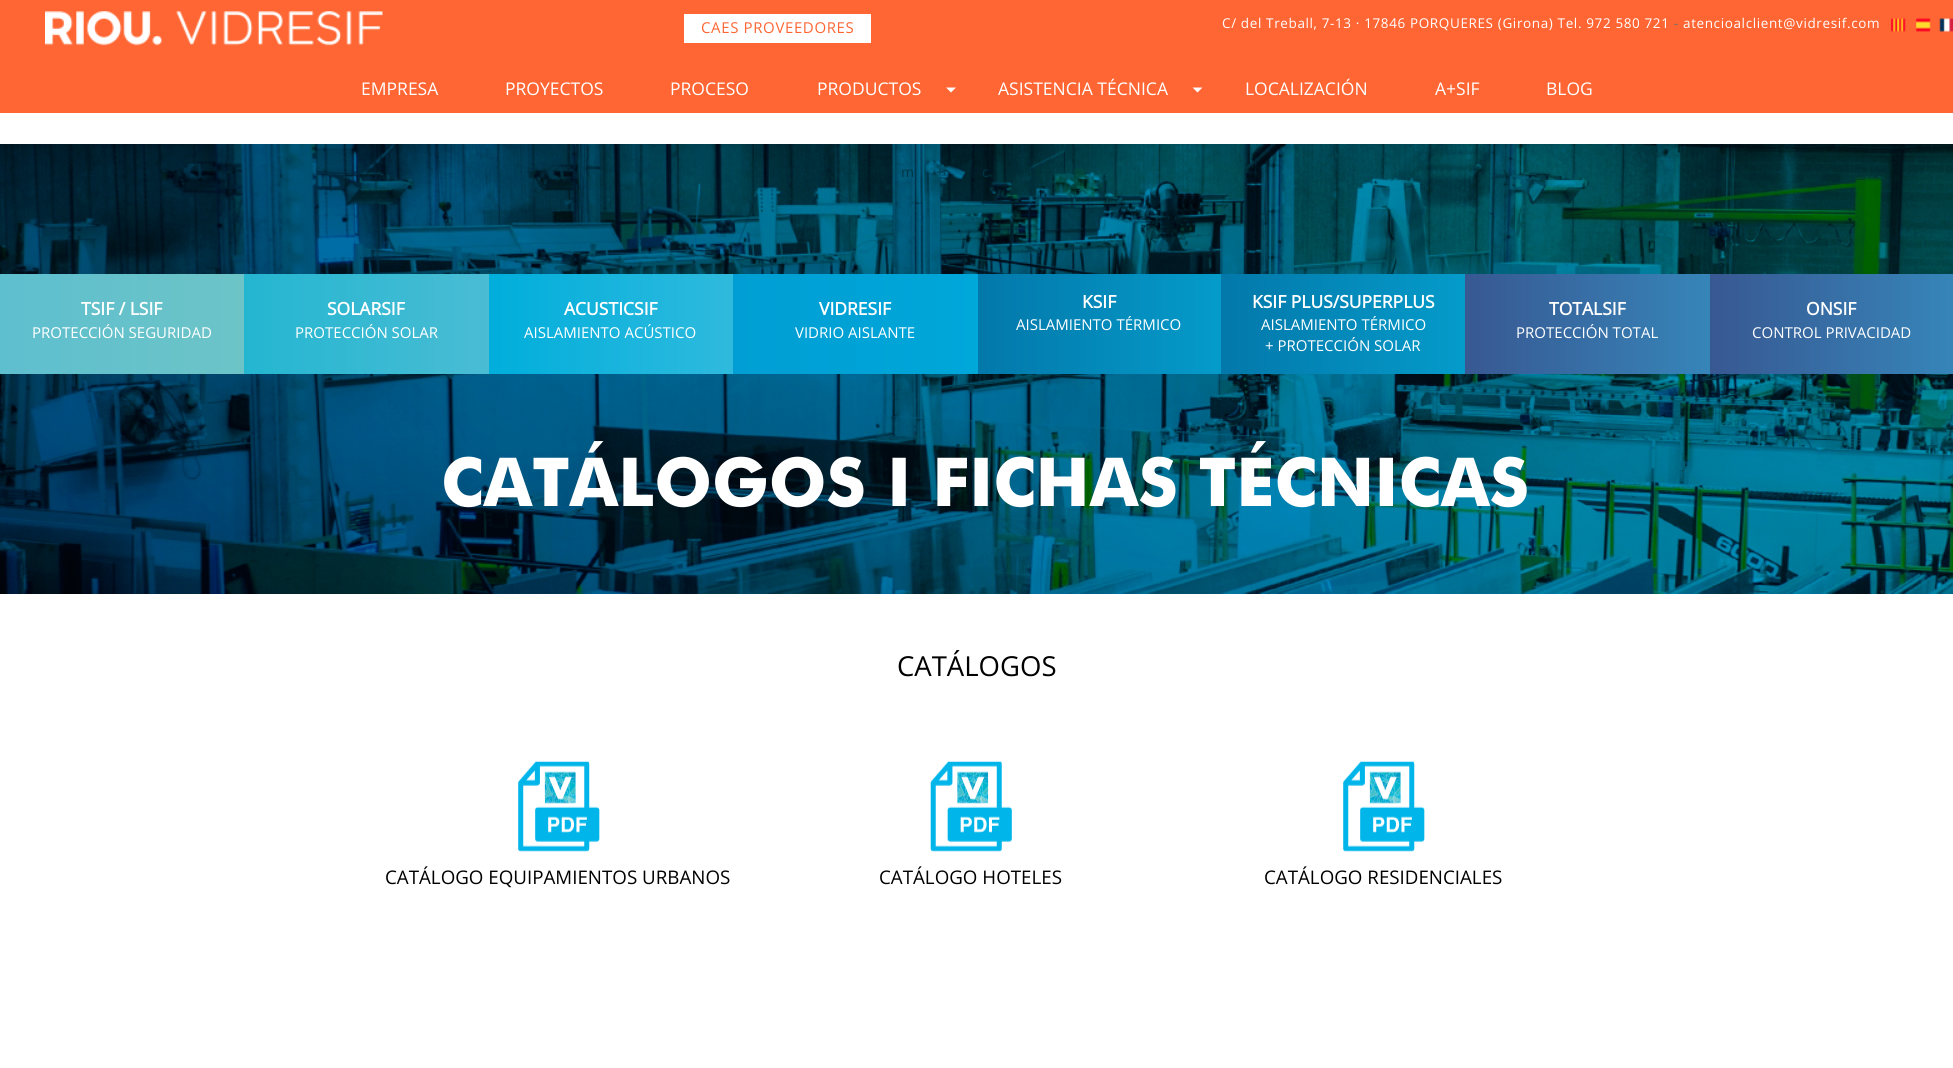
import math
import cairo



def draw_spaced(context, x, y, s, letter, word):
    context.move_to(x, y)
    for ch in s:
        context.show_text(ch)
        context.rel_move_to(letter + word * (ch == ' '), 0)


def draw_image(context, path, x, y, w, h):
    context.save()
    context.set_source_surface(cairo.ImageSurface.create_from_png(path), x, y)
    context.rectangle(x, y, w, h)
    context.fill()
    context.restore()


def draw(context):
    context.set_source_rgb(1, 1, 1)
    context.paint()
    context.set_source_rgb(1, 102 / 255, 51 / 255)
    context.rectangle(0, 0, 1953, 113)
    context.fill()
    draw_image(context, "images/1.png", 45, 11, 338, 35)
    context.set_source_rgb(1, 1, 1)
    context.rectangle(684, 14, 187, 29)
    context.fill()
    draw_image(context, "images/2.png", 1891, 18, 15, 14)
    draw_image(context, "images/3.png", 1916, 18, 15, 14)
    draw_image(context, "images/4.png", 1939, 18, 14, 14)
    context.new_path()
    context.move_to(946, 87.5)
    context.line_to(956, 87.5)
    context.line_to(951, 92.5)
    context.close_path()
    context.fill()
    context.new_path()
    context.move_to(1192.5, 87.5)
    context.line_to(1202.5, 87.5)
    context.line_to(1197.5, 92.5)
    context.close_path()
    context.fill()
    draw_image(context, "images/5.png", 0, 144, 1953, 450)
    gradient = cairo.LinearGradient(0, 324, 244, 324)
    gradient.add_color_stop_rgba(0, 94 / 255, 191 / 255, 207 / 255, 1)
    gradient.add_color_stop_rgba(1, 108 / 255, 196 / 255, 199 / 255, 1)
    context.set_source(gradient)
    context.rectangle(0, 274, 244, 100)
    context.fill()
    gradient = cairo.LinearGradient(244, 324, 489, 324)
    gradient.add_color_stop_rgba(0, 36 / 255, 182 / 255, 209 / 255, 1)
    gradient.add_color_stop_rgba(1, 74 / 255, 188 / 255, 212 / 255, 1)
    context.set_source(gradient)
    context.rectangle(244, 274, 245, 100)
    context.fill()
    gradient = cairo.LinearGradient(489, 324, 733, 324)
    gradient.add_color_stop_rgba(0, 0, 174 / 255, 220 / 255, 1)
    gradient.add_color_stop_rgba(1, 47 / 255, 186 / 255, 221 / 255, 1)
    context.set_source(gradient)
    context.rectangle(489, 274, 244, 100)
    context.fill()
    gradient = cairo.LinearGradient(733, 324, 978, 324)
    gradient.add_color_stop_rgba(0, 0, 158 / 255, 212 / 255, 1)
    gradient.add_color_stop_rgba(1, 0, 167 / 255, 217 / 255, 1)
    context.set_source(gradient)
    context.rectangle(733, 274, 245, 100)
    context.fill()
    gradient = cairo.LinearGradient(978, 324, 1221, 324)
    gradient.add_color_stop_rgba(0, 3 / 255, 120 / 255, 170 / 255, 1)
    gradient.add_color_stop_rgba(1, 4 / 255, 155 / 255, 202 / 255, 1)
    context.set_source(gradient)
    context.rectangle(978, 274, 243, 100)
    context.fill()
    gradient = cairo.LinearGradient(1221, 324, 1465, 324)
    gradient.add_color_stop_rgba(0, 3 / 255, 120 / 255, 170 / 255, 1)
    gradient.add_color_stop_rgba(1, 4 / 255, 155 / 255, 202 / 255, 1)
    context.set_source(gradient)
    context.rectangle(1221, 274, 244, 100)
    context.fill()
    gradient = cairo.LinearGradient(1465, 324, 1710, 324)
    gradient.add_color_stop_rgba(0, 56 / 255, 88 / 255, 146 / 255, 1)
    gradient.add_color_stop_rgba(1, 54 / 255, 133 / 255, 185 / 255, 1)
    context.set_source(gradient)
    context.rectangle(1465, 274, 245, 100)
    context.fill()
    gradient = cairo.LinearGradient(1710, 324, 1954, 324)
    gradient.add_color_stop_rgba(0, 56 / 255, 88 / 255, 146 / 255, 1)
    gradient.add_color_stop_rgba(1, 54 / 255, 133 / 255, 185 / 255, 1)
    context.set_source(gradient)
    context.rectangle(1710, 274, 243, 100)
    context.fill()
    draw_image(context, "images/6.png", 518, 761, 82, 91)
    draw_image(context, "images/7.png", 930, 761, 82, 91)
    draw_image(context, "images/8.png", 1343, 761, 82, 91)
    context.select_font_face("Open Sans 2")
    context.set_font_size(15)
    context.set_source_rgb(1, 102 / 255, 51 / 255)
    draw_spaced(context, 701, 33, "CAES PROVEEDORES", 0.62, 0)
    context.set_font_size(13.5)
    context.set_source_rgb(1, 1, 1)
    draw_spaced(context, 1222, 28, "C/ del Treball, 7-13 · 17846 PORQUERES (Girona) Tel. 972 580 721", 0.62, 0)
    context.set_source_rgb(111 / 255, 112 / 255, 114 / 255)
    draw_spaced(context, 1674, 28, "-", 0.62, 0)
    context.set_source_rgb(1, 1, 1)
    draw_spaced(context, 1683, 28, "atencioalclient@vidresif.com", 0.62, 0)
    context.set_font_size(17.5)
    context.move_to(361, 95)
    context.show_text("EMPRESA")
    context.move_to(505, 95)
    context.show_text("PROYECTOS")
    context.move_to(670, 95)
    context.show_text("PROCESO")
    context.move_to(817, 95)
    context.show_text("PRODUCTOS")
    context.set_font_size(14)
    context.set_source_rgb(0, 53 / 255, 68 / 255)
    context.move_to(901, 177)
    context.show_text("m")
    context.move_to(936, 177)
    context.show_text("+")
    context.move_to(982, 177)
    context.show_text("c")
    context.set_font_size(17.5)
    context.set_source_rgb(1, 1, 1)
    context.move_to(998, 95)
    context.show_text("ASISTENCIA TÉCNICA")
    context.move_to(1245, 95)
    context.show_text("LOCALIZACIÓN")
    context.move_to(1435, 95)
    context.show_text("A+SIF")
    context.move_to(1546, 95)
    context.show_text("BLOG")
    context.select_font_face("Open Sans", cairo.FontSlant.NORMAL, cairo.FontWeight.BOLD)
    context.move_to(81, 315)
    context.show_text("TSIF / LSIF")
    context.select_font_face("Open Sans 2")
    context.set_font_size(15)
    context.move_to(32, 338)
    context.show_text("PROTECCIÓN SEGURIDAD")
    context.select_font_face("Open Sans", cairo.FontSlant.NORMAL, cairo.FontWeight.BOLD)
    context.set_font_size(17.5)
    context.move_to(327, 315)
    context.show_text("SOLARSIF")
    context.select_font_face("Open Sans 2")
    context.set_font_size(15)
    context.move_to(295, 338)
    context.show_text("PROTECCIÓN SOLAR")
    context.select_font_face("Open Sans", cairo.FontSlant.NORMAL, cairo.FontWeight.BOLD)
    context.set_font_size(17.5)
    context.move_to(564, 315)
    context.show_text("ACUSTICSIF")
    context.select_font_face("Open Sans 2")
    context.set_font_size(15)
    context.move_to(524, 338)
    context.show_text("AISLAMIENTO ACÚSTICO")
    context.select_font_face("Open Sans", cairo.FontSlant.NORMAL, cairo.FontWeight.BOLD)
    context.set_font_size(17.5)
    context.move_to(819, 315)
    context.show_text("VIDRESIF")
    context.select_font_face("Open Sans 2")
    context.set_font_size(15)
    context.move_to(795, 338)
    context.show_text("VIDRIO AISLANTE")
    context.select_font_face("Open Sans", cairo.FontSlant.NORMAL, cairo.FontWeight.BOLD)
    context.set_font_size(17.5)
    context.move_to(1082, 308)
    context.show_text("KSIF")
    context.select_font_face("Open Sans 2")
    context.set_font_size(15)
    context.move_to(1016, 330)
    context.show_text("AISLAMIENTO TÉRMICO")
    context.select_font_face("Open Sans", cairo.FontSlant.NORMAL, cairo.FontWeight.BOLD)
    context.set_font_size(17.5)
    context.move_to(1252, 308)
    context.show_text("KSIF PLUS/SUPERPLUS")
    context.select_font_face("Open Sans 2")
    context.set_font_size(15)
    context.move_to(1261, 330)
    context.show_text("AISLAMIENTO TÉRMICO")
    context.move_to(1265, 351)
    context.show_text("+ PROTECCIÓN SOLAR")
    context.select_font_face("Open Sans", cairo.FontSlant.NORMAL, cairo.FontWeight.BOLD)
    context.set_font_size(17.5)
    context.move_to(1549, 315)
    context.show_text("TOTALSIF")
    context.select_font_face("Open Sans 2")
    context.set_font_size(15)
    context.move_to(1516, 338)
    context.show_text("PROTECCIÓN TOTAL")
    context.select_font_face("Open Sans", cairo.FontSlant.NORMAL, cairo.FontWeight.BOLD)
    context.set_font_size(17.5)
    context.move_to(1806, 315)
    context.show_text("ONSIF")
    context.select_font_face("Open Sans 2")
    context.set_font_size(15)
    context.move_to(1752, 338)
    context.show_text("CONTROL PRIVACIDAD")
    context.select_font_face("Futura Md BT", cairo.FontSlant.NORMAL, cairo.FontWeight.BOLD)
    context.set_font_size(67.5)
    context.move_to(441, 506)
    context.show_text("CATÁLOGOS I FICHAS TÉCNICAS")
    context.select_font_face("Open Sans")
    context.set_font_size(27.5)
    context.set_source_rgb(0, 0, 0)
    context.move_to(897, 676)
    context.show_text("CATÁLOGOS")
    context.set_font_size(18.75)
    context.move_to(385, 884)
    context.show_text("CATÁLOGO EQUIPAMIENTOS URBANOS")
    context.move_to(879, 884)
    context.show_text("CATÁLOGO HOTELES")
    context.move_to(1264, 884)
    context.show_text("CATÁLOGO RESIDENCIALES")


surface = cairo.ImageSurface(cairo.Format.RGB24, 1953, 1068)
context = cairo.Context(surface)
options = cairo.FontOptions()
options.set_hint_metrics(cairo.HintMetrics.OFF)
options.set_hint_style(cairo.HintStyle.NONE)
context.set_font_options(options)
context.set_miter_limit(4)
draw(context)
surface.write_to_png("out.png")
